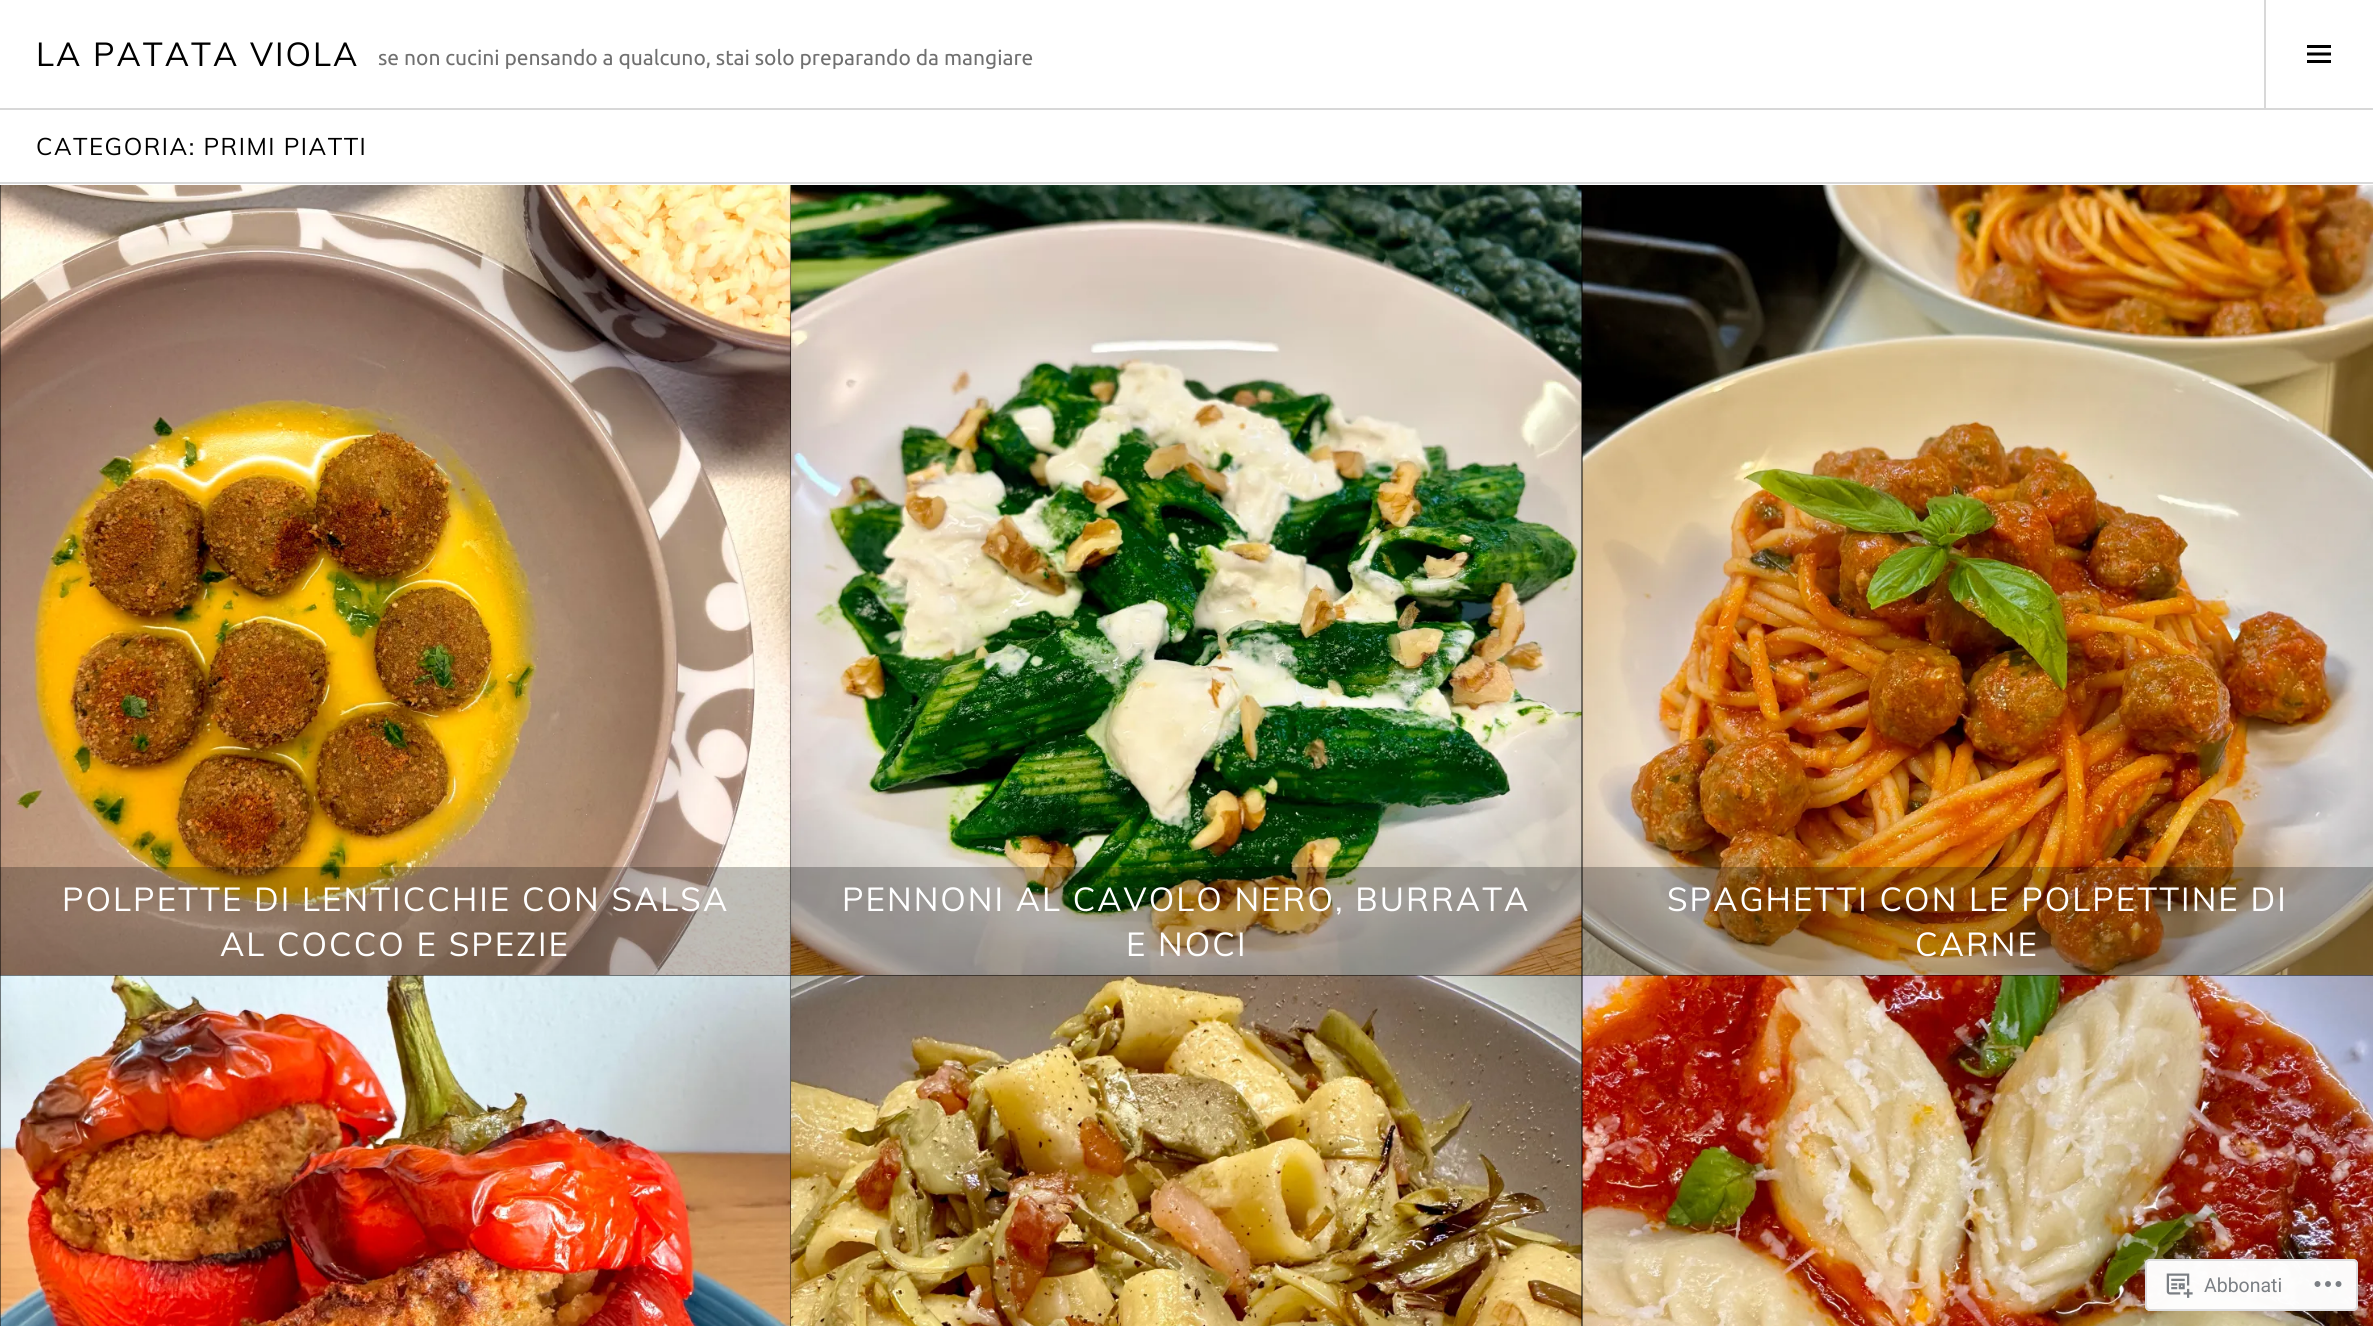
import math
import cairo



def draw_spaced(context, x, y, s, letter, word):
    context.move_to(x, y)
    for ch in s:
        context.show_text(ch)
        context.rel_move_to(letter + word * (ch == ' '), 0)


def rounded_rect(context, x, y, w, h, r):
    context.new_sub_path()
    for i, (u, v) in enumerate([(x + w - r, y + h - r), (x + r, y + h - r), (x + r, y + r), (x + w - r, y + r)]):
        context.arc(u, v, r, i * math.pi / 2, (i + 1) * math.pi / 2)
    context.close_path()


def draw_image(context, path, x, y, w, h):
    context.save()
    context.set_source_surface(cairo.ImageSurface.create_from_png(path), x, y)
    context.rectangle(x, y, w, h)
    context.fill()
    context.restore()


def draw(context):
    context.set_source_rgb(1, 1, 1)
    context.paint()
    context.set_source_rgb(216 / 255, 216 / 255, 216 / 255)
    context.rectangle(0, 108, 2373, 2)
    context.fill()
    context.rectangle(2264, 0, 2, 108)
    context.fill()
    draw_image(context, "images/1.png", 2307, 45, 24, 18)
    context.rectangle(0, 182, 2373, 2)
    context.fill()
    context.set_source_rgb(0, 0, 0)
    context.rectangle(0, 185, 791, 1141)
    context.fill()
    draw_image(context, "images/2.png", 0, 185, 791, 790)
    context.set_source_rgba(0, 0, 0, 0.25)
    context.rectangle(0, 867, 791, 108)
    context.fill()
    context.set_source_rgb(0, 0, 0)
    context.rectangle(1581, 185, 2, 790)
    context.fill()
    draw_image(context, "images/3.png", 791, 185, 791, 790)
    draw_image(context, "images/4.png", 1582, 185, 791, 790)
    context.set_source_rgba(0, 0, 0, 0.25)
    context.rectangle(791, 867, 792, 108)
    context.fill()
    context.rectangle(1583, 867, 790, 108)
    context.fill()
    draw_image(context, "images/5.png", 0, 975, 791, 351)
    context.set_source_rgb(0, 0, 0)
    context.rectangle(791, 975, 792, 351)
    context.fill()
    draw_image(context, "images/6.png", 791, 975, 791, 351)
    context.rectangle(1583, 975, 790, 1)
    context.fill()
    draw_image(context, "images/7.png", 1582, 975, 791, 351)
    context.set_source_rgba(1, 1, 1, 0.98)
    rounded_rect(context, 2145, 1259, 213, 52, 5)
    context.fill()
    rounded_rect(context, 2146, 1260, 211, 50, 4)
    context.set_source_rgba(220 / 255, 220 / 255, 222 / 255, 0.98)
    context.stroke()
    draw_image(context, "images/8.png", 2166, 1273, 27, 25)
    draw_image(context, "images/9.png", 2314, 1281, 28, 6)
    context.select_font_face("Muli")
    context.set_font_size(33)
    context.set_source_rgb(0, 0, 0)
    draw_spaced(context, 36, 66, "LA PATATA VIOLA", 2.05, 0)
    context.select_font_face("Ubuntu")
    context.set_font_size(21)
    context.set_source_rgb(112 / 255, 112 / 255, 112 / 255)
    context.move_to(378, 65)
    context.show_text("se non cucini pensando a qualcuno, stai solo preparando da mangiare")
    context.select_font_face("Muli")
    context.set_font_size(24)
    context.set_source_rgb(0, 0, 0)
    draw_spaced(context, 36, 155, "CATEGORIA: PRIMI PIATTI", 1.5, 0)
    context.set_font_size(33)
    context.set_source_rgb(1, 1, 1)
    draw_spaced(context, 62, 911, "POLPETTE DI LENTICCHIE CON SALSA", 2.05, 0)
    draw_spaced(context, 220, 956, "AL COCCO E SPEZIE", 2.05, 0)
    draw_spaced(context, 842, 911, "PENNONI AL CAVOLO NERO, BURRATA", 2.05, 0)
    draw_spaced(context, 1126, 956, "E NOCI", 2.05, 0)
    draw_spaced(context, 1667, 911, "SPAGHETTI CON LE POLPETTINE DI", 2.05, 0)
    draw_spaced(context, 1915, 956, "CARNE", 2.05, 0)
    context.select_font_face("Roboto")
    context.set_font_size(19.5)
    context.set_source_rgb(123 / 255, 127 / 255, 132 / 255)
    context.move_to(2204, 1292)
    context.show_text("Abbonati")


surface = cairo.ImageSurface(cairo.Format.RGB24, 2373, 1326)
context = cairo.Context(surface)
options = cairo.FontOptions()
options.set_hint_metrics(cairo.HintMetrics.OFF)
options.set_hint_style(cairo.HintStyle.NONE)
context.set_font_options(options)
context.set_miter_limit(4)
draw(context)
surface.write_to_png("out.png")
